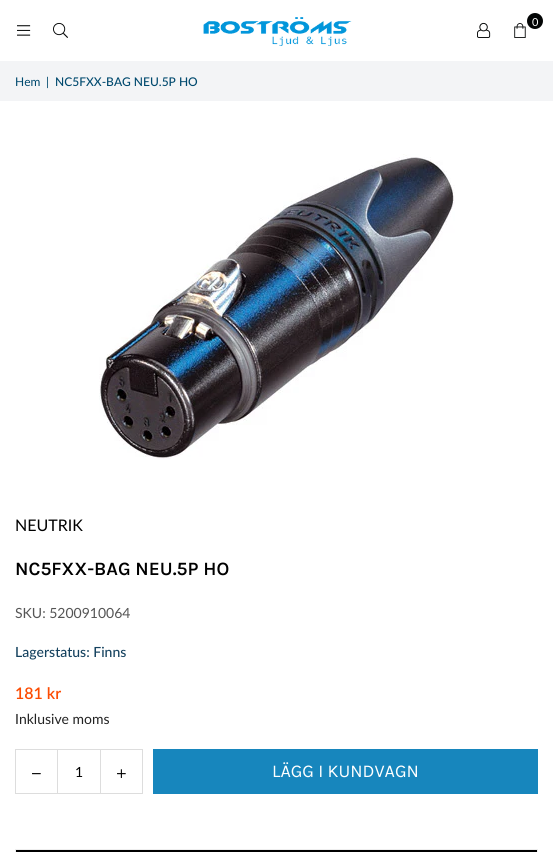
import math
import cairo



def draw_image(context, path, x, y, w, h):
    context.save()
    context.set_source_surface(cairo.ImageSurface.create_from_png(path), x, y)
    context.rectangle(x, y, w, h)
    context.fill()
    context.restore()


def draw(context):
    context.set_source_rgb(1, 1, 1)
    context.paint()
    draw_image(context, "images/1.png", 17, 25, 14, 11)
    draw_image(context, "images/2.png", 53, 22, 15, 16)
    draw_image(context, "images/3.png", 203, 17, 149, 29)
    draw_image(context, "images/4.png", 477, 22, 14, 16)
    draw_image(context, "images/5.png", 514, 23, 12, 15)
    context.set_source_rgb(3 / 255, 5 / 255, 5 / 255)
    context.arc(535, 21, 8, 0, 2 * math.pi)
    context.fill()
    context.set_source_rgb(243 / 255, 244 / 255, 246 / 255)
    context.rectangle(0, 61, 553, 40)
    context.fill()
    draw_image(context, "images/6.png", 99, 154, 356, 305)
    context.rectangle(15.5, 749.5, 127, 44)
    context.set_source_rgb(221 / 255, 221 / 255, 221 / 255)
    context.set_line_width(1)
    context.stroke()
    context.rectangle(57, 750, 1, 43)
    context.fill()
    draw_image(context, "images/7.png", 32, 773, 9, 2)
    context.rectangle(100, 750, 1, 43)
    context.fill()
    draw_image(context, "images/8.png", 117, 769, 9, 9)
    context.set_source_rgb(23 / 255, 134 / 255, 189 / 255)
    context.rectangle(153, 749, 385, 45)
    context.fill()
    context.set_source_rgb(0, 0, 0)
    context.rectangle(15.5, 849.5, 522, 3)
    context.fill_preserve()
    context.set_source_rgb(238 / 255, 238 / 255, 238 / 255)
    context.stroke()
    context.select_font_face("Lato")
    context.set_font_size(11)
    context.set_source_rgb(1, 1, 1)
    context.move_to(532, 26)
    context.show_text("0")
    context.set_font_size(12)
    context.set_source_rgb(0, 73 / 255, 110 / 255)
    context.move_to(15, 86)
    context.show_text("Hem")
    context.move_to(46, 86)
    context.show_text("|")
    context.select_font_face("Lato Medium")
    context.move_to(55, 86)
    context.show_text("NC5FXX-BAG NEU.5P HO")
    context.select_font_face("Lato")
    context.set_font_size(16)
    context.set_source_rgb(0, 0, 0)
    context.move_to(15, 531)
    context.show_text("NEUTRIK")
    context.select_font_face("Karla SemiBold")
    context.set_font_size(19)
    context.move_to(15, 575)
    context.show_text("NC5FXX-BAG NEU.5P HO")
    context.select_font_face("Lato")
    context.set_font_size(14)
    context.set_source_rgb(85 / 255, 85 / 255, 85 / 255)
    context.move_to(15, 618)
    context.show_text("SKU: 5200910064")
    context.select_font_face("Lato Medium")
    context.set_source_rgb(21 / 255, 66 / 255, 95 / 255)
    context.move_to(15, 657)
    context.show_text("Lagerstatus: Finns")
    context.select_font_face("Lato SemiBold")
    context.set_font_size(16)
    context.set_source_rgb(252 / 255, 76 / 255, 3 / 255)
    context.move_to(15, 699)
    context.show_text("181 kr")
    context.select_font_face("Lato")
    context.set_font_size(14)
    context.set_source_rgb(34 / 255, 34 / 255, 34 / 255)
    context.move_to(15, 724)
    context.show_text("Inklusive moms")
    context.set_source_rgb(0, 0, 0)
    context.move_to(75, 777)
    context.show_text("1")
    context.select_font_face("Karla")
    context.set_font_size(18)
    context.set_source_rgb(1, 1, 1)
    context.move_to(272, 777)
    context.show_text("LÄGG I KUNDVAGN")


surface = cairo.ImageSurface(cairo.Format.RGB24, 553, 852)
context = cairo.Context(surface)
options = cairo.FontOptions()
options.set_hint_metrics(cairo.HintMetrics.OFF)
options.set_hint_style(cairo.HintStyle.NONE)
context.set_font_options(options)
context.set_miter_limit(4)
draw(context)
surface.write_to_png("out.png")
